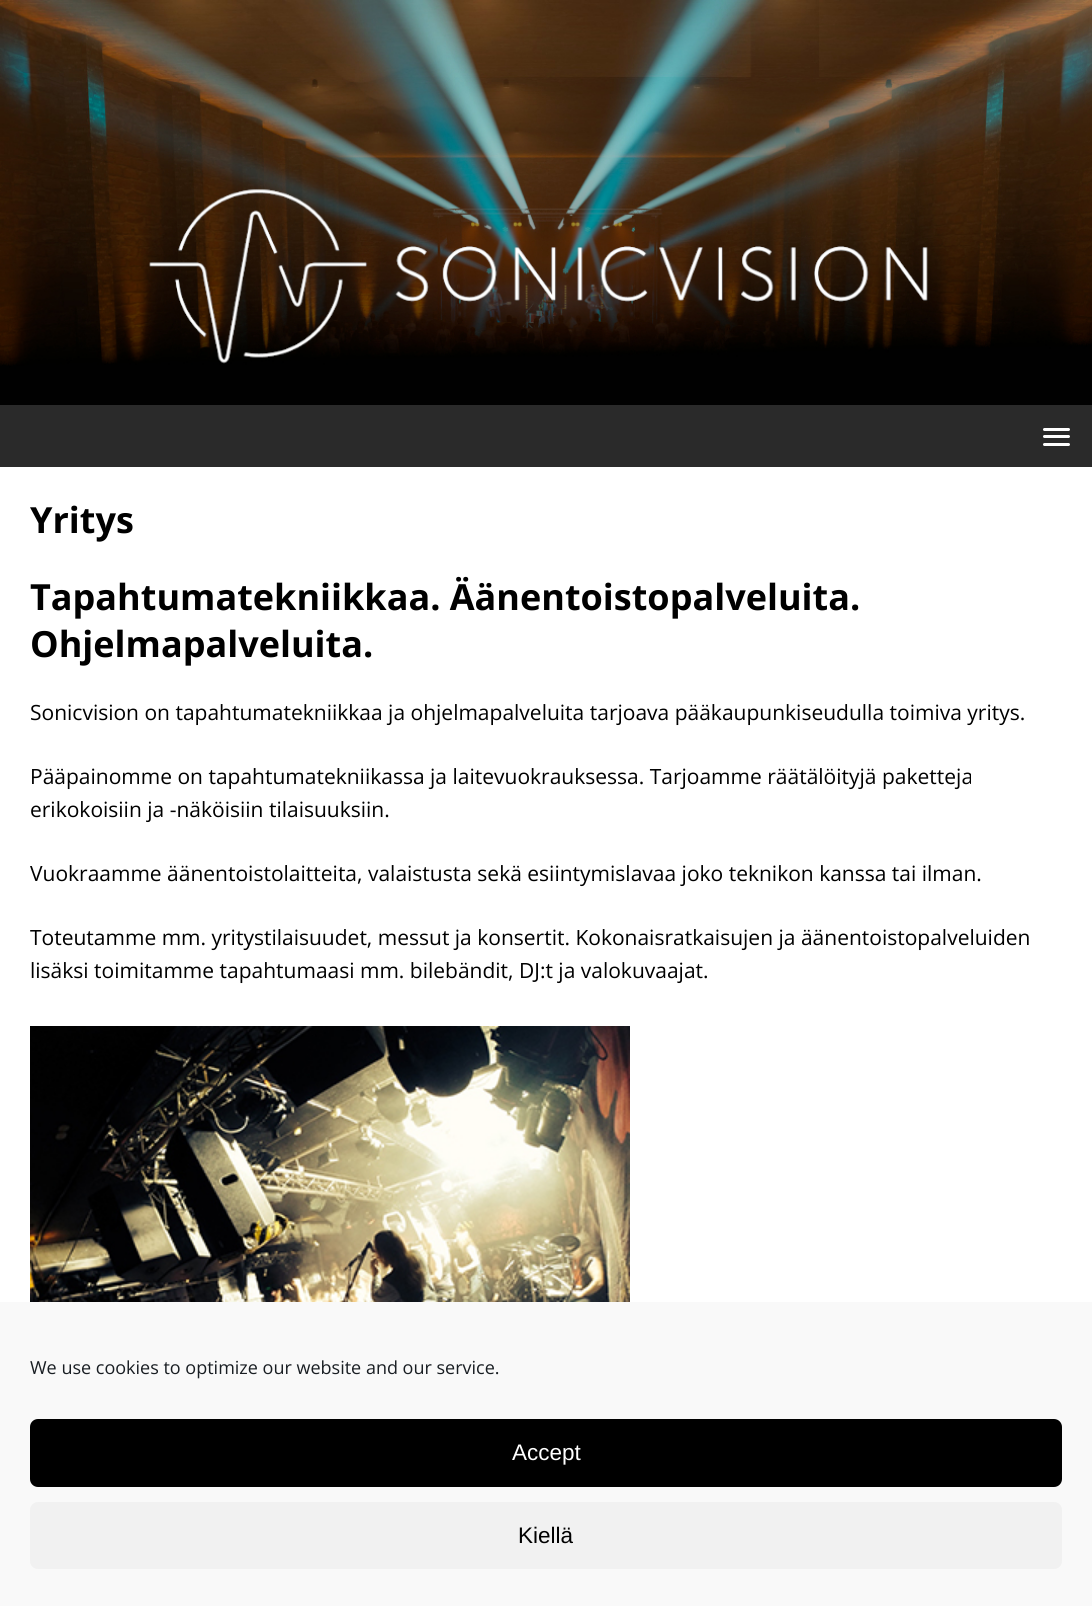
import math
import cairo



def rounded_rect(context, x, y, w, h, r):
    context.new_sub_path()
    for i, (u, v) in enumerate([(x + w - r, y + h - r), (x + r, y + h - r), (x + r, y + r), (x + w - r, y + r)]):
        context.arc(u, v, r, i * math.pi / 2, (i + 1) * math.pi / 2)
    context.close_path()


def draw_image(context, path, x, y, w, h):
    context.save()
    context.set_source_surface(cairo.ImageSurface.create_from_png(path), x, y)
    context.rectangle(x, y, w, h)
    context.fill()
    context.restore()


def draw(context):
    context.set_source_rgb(42 / 255, 42 / 255, 42 / 255)
    context.paint()
    draw_image(context, "images/1.png", 0, 0, 1092, 405)
    context.set_source_rgb(1, 1, 1)
    rounded_rect(context, 1043, 428, 27, 3, 1.5)
    context.fill()
    rounded_rect(context, 1043, 435, 27, 3, 1.5)
    context.fill()
    rounded_rect(context, 1043, 443, 27, 3, 1.5)
    context.fill()
    context.rectangle(0, 467, 1092, 835)
    context.fill()
    draw_image(context, "images/2.png", 30, 1026, 600, 276)
    context.set_source_rgb(249 / 255, 249 / 255, 249 / 255)
    context.rectangle(0, 1302, 1092, 304)
    context.fill()
    context.set_source_rgb(0, 0, 0)
    rounded_rect(context, 31, 1420, 1030, 66, 7)
    context.fill_preserve()
    context.stroke()
    context.set_source_rgb(241 / 255, 241 / 255, 241 / 255)
    rounded_rect(context, 30, 1502, 1032, 67, 8)
    context.fill()
    context.select_font_face("Open Sans", cairo.FontSlant.NORMAL, cairo.FontWeight.BOLD)
    context.set_font_size(36)
    context.set_source_rgb(0, 0, 0)
    context.move_to(30, 533)
    context.show_text("Yritys")
    context.move_to(30, 610)
    context.show_text("Tapahtumatekniikkaa. Äänentoistopalveluita.")
    context.move_to(30, 657)
    context.show_text("Ohjelmapalveluita.")
    context.select_font_face("Open Sans")
    context.set_font_size(21)
    context.move_to(30, 720)
    context.show_text("Sonicvision on tapahtumatekniikkaa ja ohjelmapalveluita tarjoava pääkaupunkiseudulla toimiva yritys.")
    context.move_to(30, 784)
    context.show_text("Pääpainomme on tapahtumatekniikassa ja laitevuokrauksessa. Tarjoamme räätälöityjä paketteja")
    context.move_to(30, 817)
    context.show_text("erikokoisiin ja -näköisiin tilaisuuksiin.")
    context.move_to(30, 881)
    context.show_text("Vuokraamme äänentoistolaitteita, valaistusta sekä esiintymislavaa joko teknikon kanssa tai ilman.")
    context.move_to(30, 945)
    context.show_text("Toteutamme mm. yritystilaisuudet, messut ja konsertit. Kokonaisratkaisujen ja äänentoistopalveluiden")
    context.move_to(30, 978)
    context.show_text("lisäksi toimitamme tapahtumaasi mm. bilebändit, DJ:t ja valokuvaajat.")
    context.set_font_size(18)
    context.set_source_rgb(25 / 255, 30 / 255, 35 / 255)
    context.move_to(30, 1374)
    context.show_text("We use cookies to optimize our website and our service.")
    context.select_font_face("Liberation Sans")
    context.set_font_size(22.5)
    context.set_source_rgb(1, 1, 1)
    context.move_to(512, 1460)
    context.show_text("Accept")
    context.set_source_rgb(0, 0, 0)
    context.move_to(518, 1543)
    context.show_text("Kiellä")


surface = cairo.ImageSurface(cairo.Format.RGB24, 1092, 1606)
context = cairo.Context(surface)
options = cairo.FontOptions()
options.set_hint_metrics(cairo.HintMetrics.OFF)
options.set_hint_style(cairo.HintStyle.NONE)
context.set_font_options(options)
context.set_miter_limit(4)
draw(context)
surface.write_to_png("out.png")
